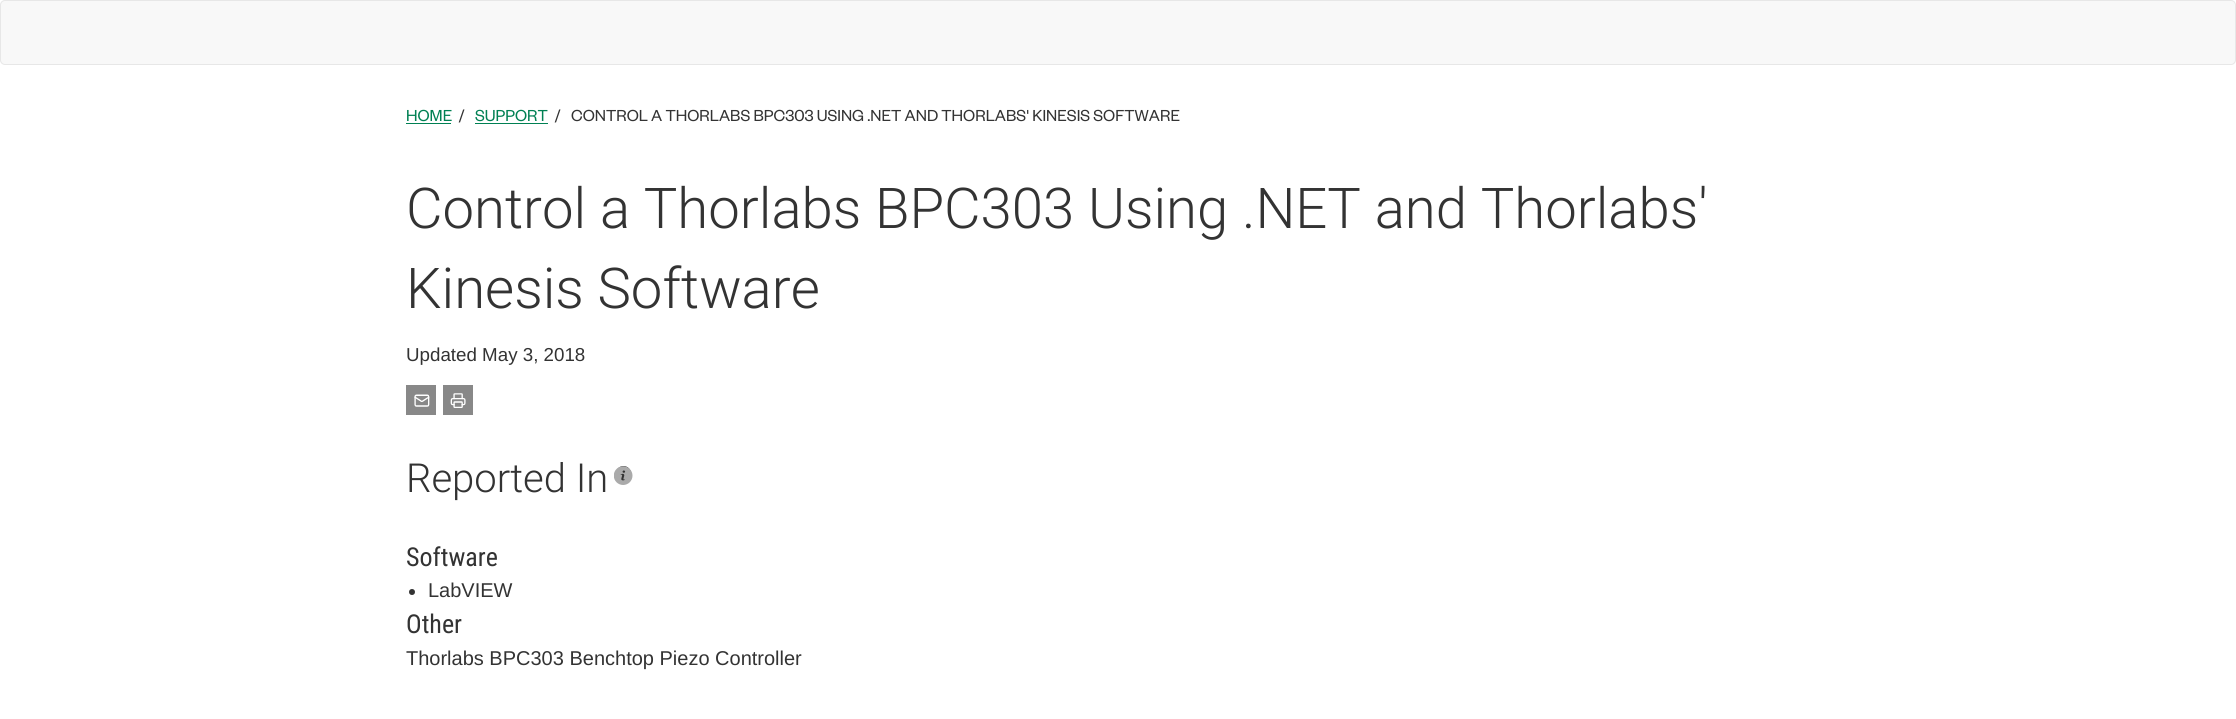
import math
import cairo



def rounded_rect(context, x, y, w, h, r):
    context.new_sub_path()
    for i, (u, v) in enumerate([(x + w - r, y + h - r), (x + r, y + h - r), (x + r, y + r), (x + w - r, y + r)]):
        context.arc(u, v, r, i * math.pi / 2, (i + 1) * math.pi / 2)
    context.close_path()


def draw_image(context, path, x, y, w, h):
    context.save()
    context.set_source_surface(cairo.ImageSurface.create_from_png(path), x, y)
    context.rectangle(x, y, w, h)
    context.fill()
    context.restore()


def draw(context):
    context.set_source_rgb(1, 1, 1)
    context.paint()
    context.set_source_rgb(248 / 255, 248 / 255, 248 / 255)
    rounded_rect(context, 0.5, 0.5, 2235, 64, 4.5)
    context.fill_preserve()
    context.set_source_rgb(231 / 255, 231 / 255, 231 / 255)
    context.set_line_width(1)
    context.stroke()
    context.set_source_rgb(0, 128 / 255, 83 / 255)
    context.rectangle(406, 123, 45, 1)
    context.fill()
    context.rectangle(475, 123, 73, 1)
    context.fill()
    context.set_source_rgb(136 / 255, 136 / 255, 136 / 255)
    context.rectangle(406, 385, 30, 30)
    context.fill()
    draw_image(context, "images/1.png", 414, 394, 16, 13)
    context.rectangle(443, 385, 30, 30)
    context.fill()
    draw_image(context, "images/2.png", 450, 393, 16, 15)
    context.set_source_rgb(51 / 255, 51 / 255, 51 / 255)
    context.arc(623.5, 473.5, 7.5, 0, 2 * math.pi)
    context.fill()
    draw_image(context, "images/3.png", 614, 466, 19, 19)
    context.arc(412, 592, 3, 0, 2 * math.pi)
    context.fill()
    context.select_font_face("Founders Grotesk")
    context.set_font_size(17.5)
    context.set_source_rgb(0, 128 / 255, 83 / 255)
    context.move_to(406, 121)
    context.show_text("HOME")
    context.set_source_rgb(51 / 255, 51 / 255, 51 / 255)
    context.move_to(459, 121)
    context.show_text("/")
    context.set_source_rgb(0, 128 / 255, 83 / 255)
    context.move_to(475, 121)
    context.show_text("SUPPORT")
    context.set_source_rgb(51 / 255, 51 / 255, 51 / 255)
    context.move_to(555, 121)
    context.show_text("/")
    context.move_to(571, 121)
    context.show_text("CONTROL A THORLABS BPC303 USING .NET AND THORLABS' KINESIS SOFTWARE")
    context.select_font_face("Roboto Light")
    context.set_font_size(56.25)
    context.move_to(406, 228)
    context.show_text("Control a Thorlabs BPC303 Using .NET and Thorlabs'")
    context.move_to(406, 308)
    context.show_text("Kinesis Software")
    context.select_font_face("Liberation Sans")
    context.set_font_size(18.75)
    context.move_to(406, 361)
    context.show_text("Updated May 3, 2018")
    context.select_font_face("Roboto Light")
    context.set_font_size(40)
    context.move_to(406, 492)
    context.show_text("Reported In")
    context.select_font_face("Roboto Condensed")
    context.set_font_size(26)
    context.move_to(406, 566)
    context.show_text("Software")
    context.select_font_face("Liberation Sans")
    context.set_font_size(20)
    context.move_to(428, 597)
    context.show_text("LabVIEW")
    context.select_font_face("Roboto Condensed")
    context.set_font_size(26)
    context.move_to(406, 633)
    context.show_text("Other")
    context.select_font_face("Liberation Sans")
    context.set_font_size(20)
    context.move_to(406, 665)
    context.show_text("Thorlabs BPC303 Benchtop Piezo Controller")


surface = cairo.ImageSurface(cairo.Format.RGB24, 2236, 719)
context = cairo.Context(surface)
options = cairo.FontOptions()
options.set_hint_metrics(cairo.HintMetrics.OFF)
options.set_hint_style(cairo.HintStyle.NONE)
context.set_font_options(options)
context.set_miter_limit(4)
draw(context)
surface.write_to_png("out.png")
